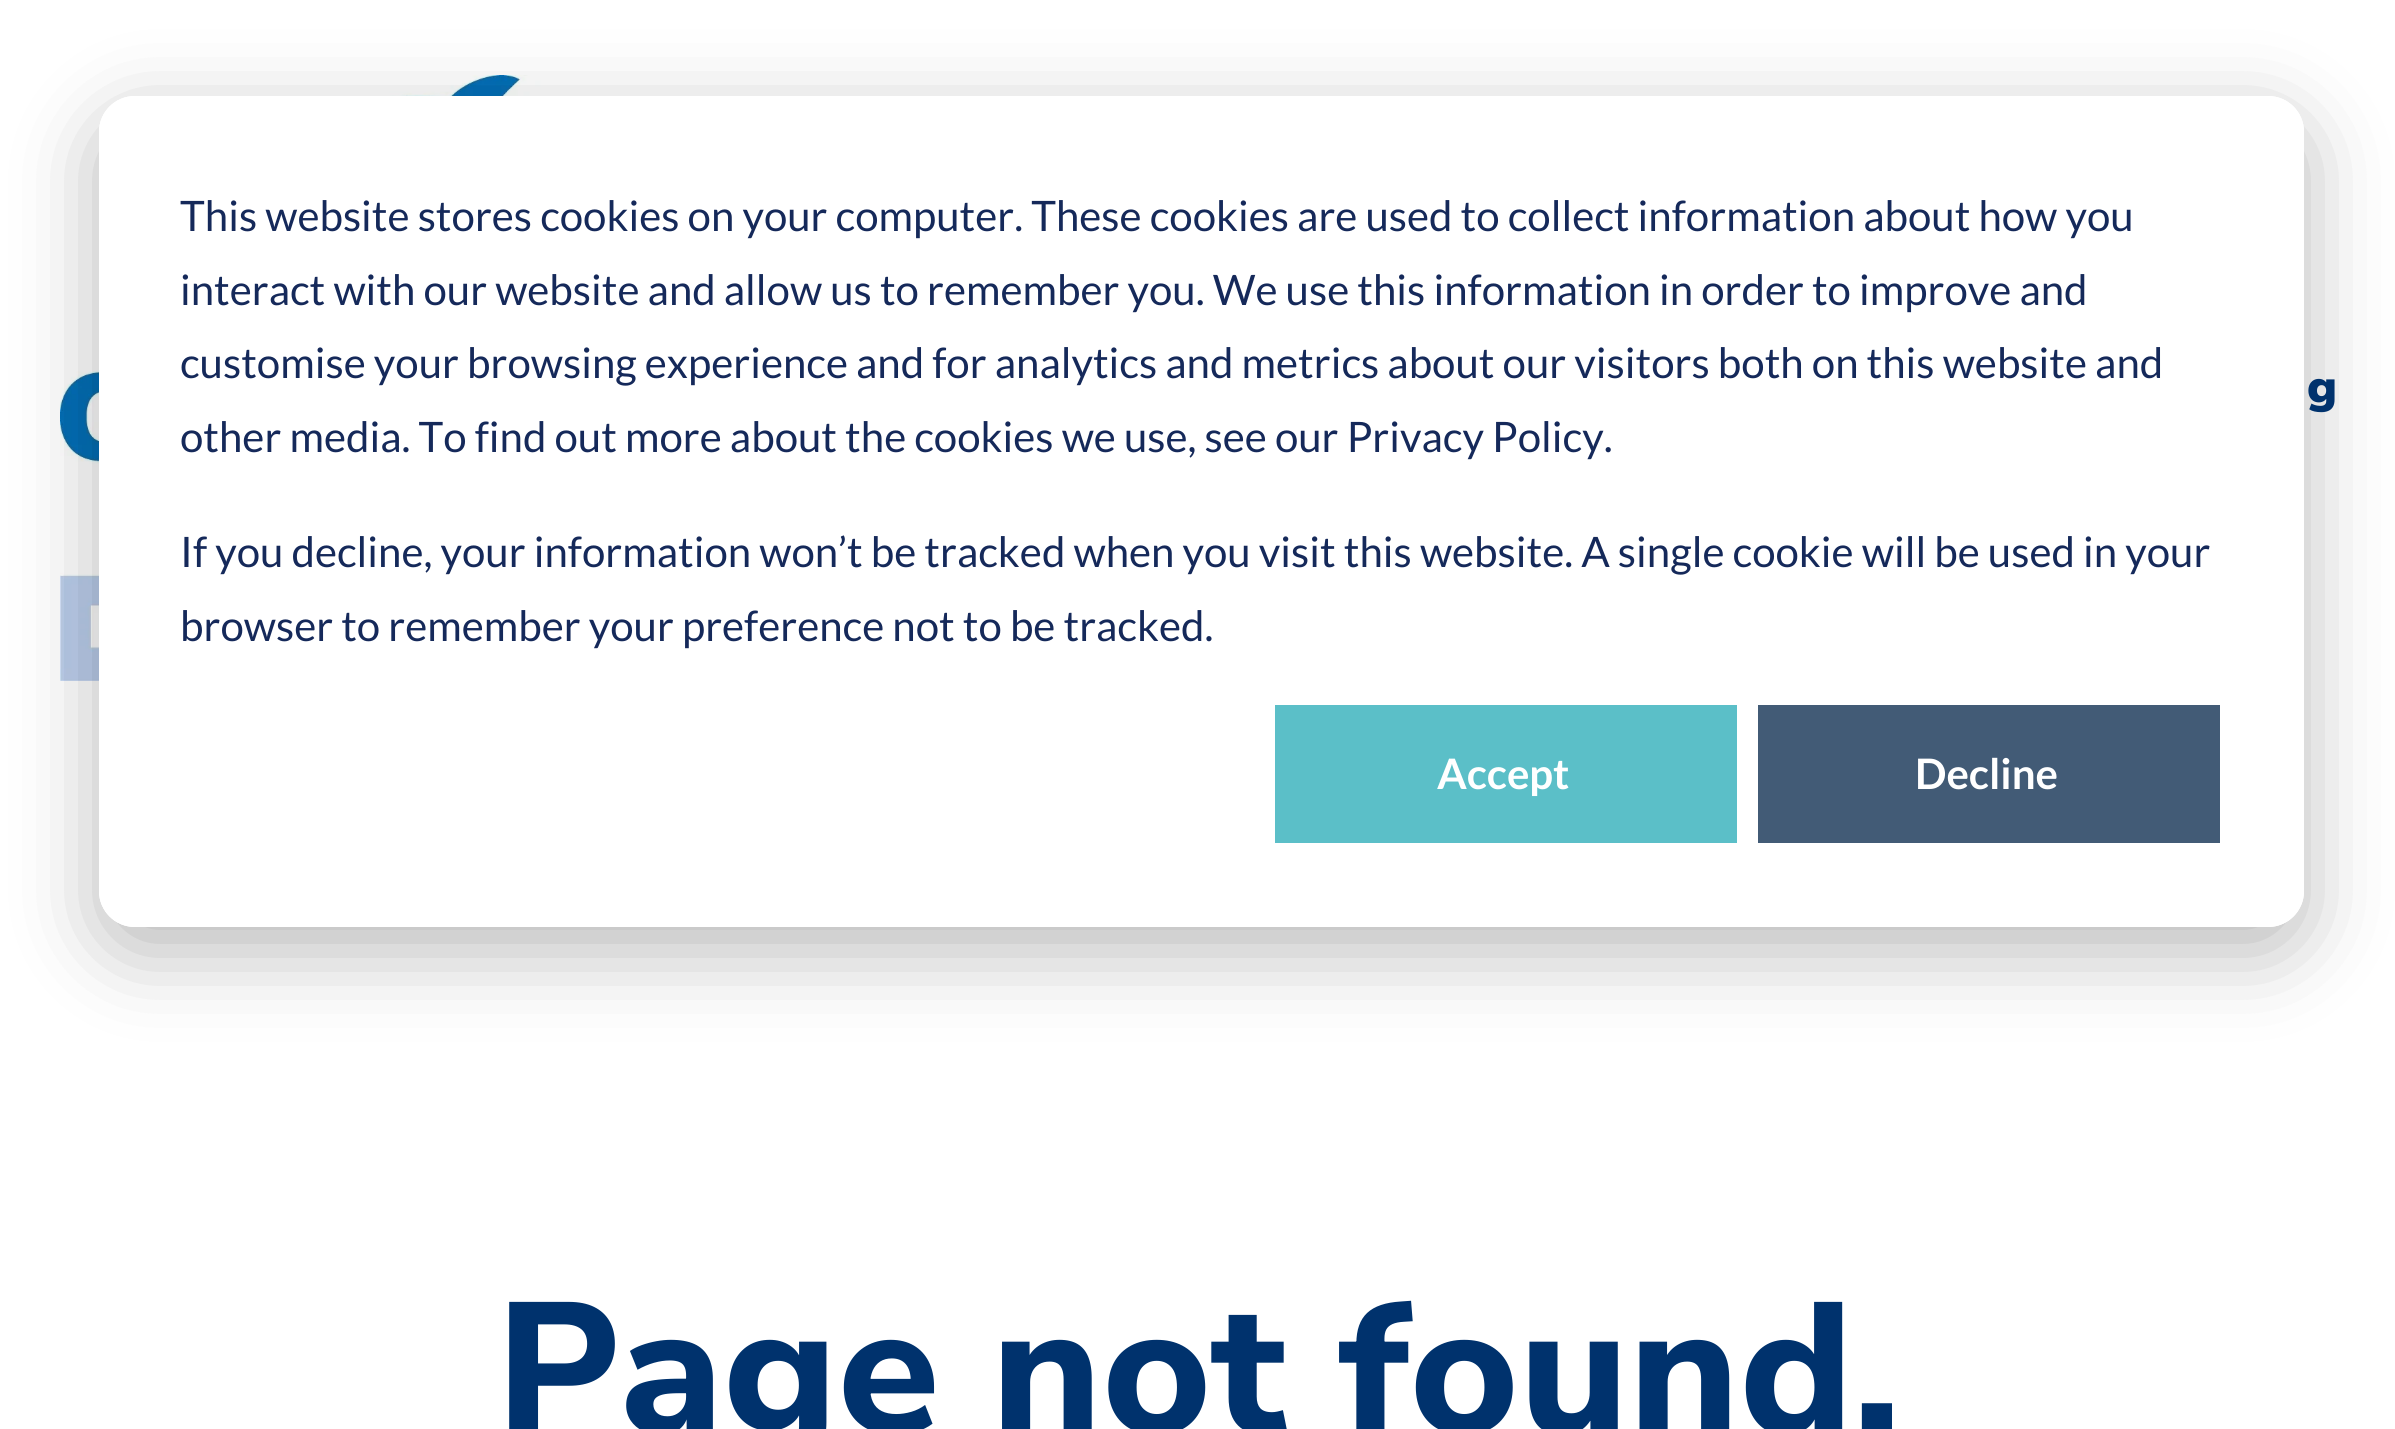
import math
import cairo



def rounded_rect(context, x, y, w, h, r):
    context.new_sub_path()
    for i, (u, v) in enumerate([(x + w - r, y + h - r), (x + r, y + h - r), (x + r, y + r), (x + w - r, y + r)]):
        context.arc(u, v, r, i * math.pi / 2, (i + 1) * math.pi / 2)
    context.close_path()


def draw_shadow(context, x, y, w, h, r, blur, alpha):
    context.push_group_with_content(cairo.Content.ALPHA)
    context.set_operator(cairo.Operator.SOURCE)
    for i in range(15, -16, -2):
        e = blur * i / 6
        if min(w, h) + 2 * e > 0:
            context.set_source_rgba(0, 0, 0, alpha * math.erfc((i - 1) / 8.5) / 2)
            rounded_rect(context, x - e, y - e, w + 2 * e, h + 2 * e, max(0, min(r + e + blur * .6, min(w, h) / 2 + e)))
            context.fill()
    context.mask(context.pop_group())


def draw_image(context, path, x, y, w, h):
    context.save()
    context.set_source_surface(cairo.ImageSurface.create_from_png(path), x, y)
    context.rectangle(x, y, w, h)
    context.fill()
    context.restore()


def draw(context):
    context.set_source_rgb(1, 1, 1)
    context.paint()
    draw_image(context, "images/1.png", 60, 75, 750, 606)
    context.save()
    context.set_fill_rule(cairo.FillRule.EVEN_ODD)
    context.new_path()
    context.move_to(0, 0)
    context.line_to(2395, 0)
    context.line_to(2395, 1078)
    context.line_to(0, 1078)
    context.close_path()
    context.move_to(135, 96)
    context.line_to(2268, 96)
    context.curve_to(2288, 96, 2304, 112, 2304, 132)
    context.line_to(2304, 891)
    context.curve_to(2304, 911, 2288, 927, 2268, 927)
    context.line_to(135, 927)
    context.curve_to(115, 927, 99, 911, 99, 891)
    context.line_to(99, 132)
    context.curve_to(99, 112, 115, 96, 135, 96)
    context.close_path()
    context.clip()
    context.set_source_rgb(0, 0, 0)
    draw_shadow(context, 99, 120, 2205, 831, 36, 42, 0.28)
    context.restore()
    context.set_source_rgb(1, 1, 1)
    rounded_rect(context, 99, 96, 2205, 831, 36)
    context.fill()
    context.set_source_rgb(91 / 255, 191 / 255, 200 / 255)
    context.rectangle(1275, 705, 462, 138)
    context.fill()
    context.set_source_rgb(66 / 255, 91 / 255, 118 / 255)
    context.rectangle(1758, 705, 462, 138)
    context.fill()
    context.select_font_face("Lato")
    context.set_font_size(42)
    context.set_source_rgb(21 / 255, 41 / 255, 90 / 255)
    context.move_to(180, 231)
    context.show_text("This website stores cookies on your computer. These cookies are used to collect information about how you")
    context.move_to(180, 305)
    context.show_text("interact with our website and allow us to remember you. We use this information in order to improve and")
    context.move_to(180, 378)
    context.show_text("customise your browsing experience and for analytics and metrics about our visitors both on this website and")
    context.move_to(180, 452)
    context.show_text("other media. To find out more about the cookies we use, see our Privacy Policy.")
    context.move_to(180, 567)
    context.show_text("If you decline, your information won’t be tracked when you visit this website. A single cookie will be used in your")
    context.move_to(180, 641)
    context.show_text("browser to remember your preference not to be tracked.")
    context.select_font_face("Lato", cairo.FontSlant.NORMAL, cairo.FontWeight.BOLD)
    context.set_source_rgb(1, 1, 1)
    context.move_to(1437, 789)
    context.show_text("Accept")
    context.move_to(1915, 789)
    context.show_text("Decline")
    context.select_font_face("Nunito Sans Black")
    context.set_font_size(48)
    context.set_source_rgb(0, 50 / 255, 109 / 255)
    context.move_to(2307, 403)
    context.show_text("g")
    context.select_font_face("Nunito Sans ExtraBold")
    context.set_font_size(186)
    context.move_to(496, 1433)
    context.show_text("Page not found.")


surface = cairo.ImageSurface(cairo.Format.RGB24, 2395, 1429)
context = cairo.Context(surface)
options = cairo.FontOptions()
options.set_hint_metrics(cairo.HintMetrics.OFF)
options.set_hint_style(cairo.HintStyle.NONE)
context.set_font_options(options)
context.set_miter_limit(4)
draw(context)
surface.write_to_png("out.png")
